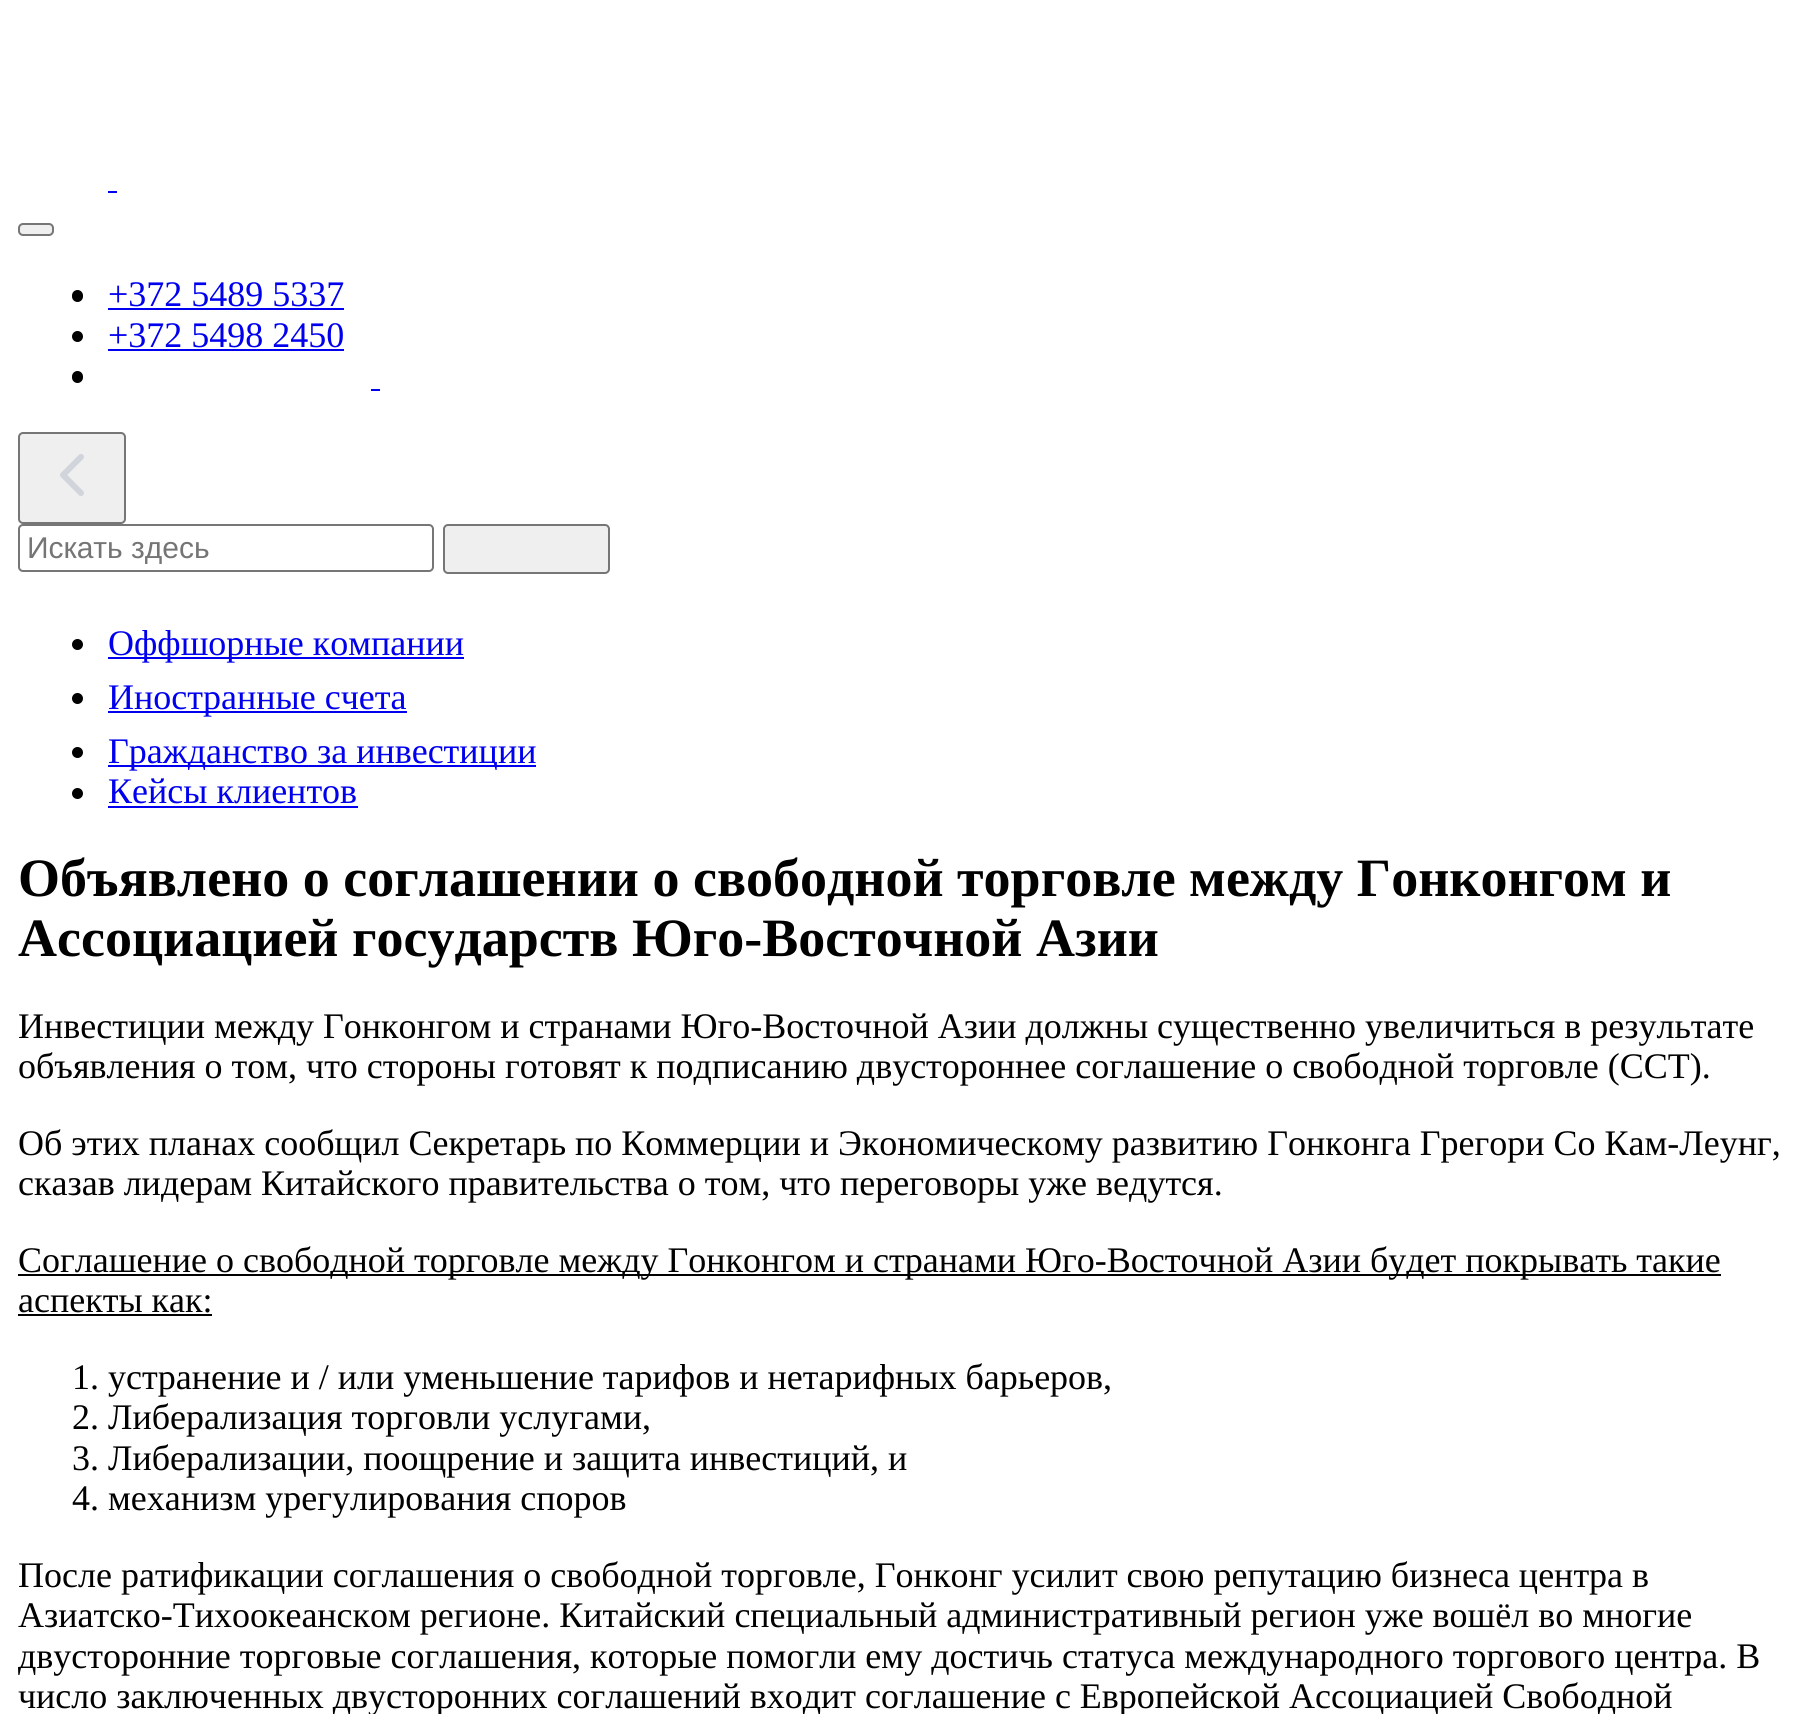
import math
import cairo



def rounded_rect(context, x, y, w, h, r):
    context.new_sub_path()
    for i, (u, v) in enumerate([(x + w - r, y + h - r), (x + r, y + h - r), (x + r, y + r), (x + w - r, y + r)]):
        context.arc(u, v, r, i * math.pi / 2, (i + 1) * math.pi / 2)
    context.close_path()


def draw(context):
    context.set_source_rgb(1, 1, 1)
    context.paint()
    context.set_source_rgb(0, 0, 238 / 255)
    context.rectangle(108, 191, 9, 2)
    context.fill()
    context.set_source_rgb(239 / 255, 239 / 255, 239 / 255)
    rounded_rect(context, 19, 224, 34, 11, 4)
    context.fill_preserve()
    context.set_source_rgb(118 / 255, 118 / 255, 118 / 255)
    context.stroke()
    context.set_source_rgb(0, 0, 0)
    rounded_rect(context, 72, 290, 11, 12, 5.5)
    context.fill()
    context.set_source_rgb(0, 0, 238 / 255)
    context.rectangle(108, 308, 236, 2)
    context.fill()
    context.set_source_rgb(0, 0, 0)
    context.arc(77.5, 336.5, 5.5, 0, 2 * math.pi)
    context.fill()
    context.set_source_rgb(0, 0, 238 / 255)
    context.rectangle(108, 349, 236, 2)
    context.fill()
    context.set_source_rgb(0, 0, 0)
    rounded_rect(context, 72, 371, 11, 12, 5.5)
    context.fill()
    context.set_source_rgb(0, 0, 238 / 255)
    context.rectangle(371, 389, 9, 2)
    context.fill()
    context.set_source_rgb(239 / 255, 239 / 255, 239 / 255)
    rounded_rect(context, 19, 433, 106, 90, 4)
    context.fill_preserve()
    context.set_source_rgb(118 / 255, 118 / 255, 118 / 255)
    context.stroke()
    context.new_path()
    context.move_to(81, 457)
    context.line_to(63, 475)
    context.line_to(81, 493)
    context.set_source_rgb(209 / 255, 213 / 255, 219 / 255)
    context.set_line_width(6)
    context.set_line_cap(cairo.LineCap.ROUND)
    context.set_line_join(cairo.LineJoin.ROUND)
    context.stroke()
    rounded_rect(context, 19, 525, 414, 46, 4)
    context.set_source_rgb(118 / 255, 118 / 255, 118 / 255)
    context.set_line_width(2)
    context.set_line_cap(cairo.LineCap.BUTT)
    context.set_line_join(cairo.LineJoin.MITER)
    context.stroke()
    context.set_source_rgb(239 / 255, 239 / 255, 239 / 255)
    rounded_rect(context, 444, 525, 165, 48, 4)
    context.fill_preserve()
    context.set_source_rgb(118 / 255, 118 / 255, 118 / 255)
    context.stroke()
    context.set_source_rgb(0, 0, 0)
    context.arc(77.5, 644.5, 5.5, 0, 2 * math.pi)
    context.fill()
    context.set_source_rgb(0, 0, 238 / 255)
    context.rectangle(108, 657, 356, 2)
    context.fill()
    context.set_source_rgb(0, 0, 0)
    context.arc(77.5, 698.5, 5.5, 0, 2 * math.pi)
    context.fill()
    context.set_source_rgb(0, 0, 238 / 255)
    context.rectangle(108, 711, 299, 2)
    context.fill()
    context.set_source_rgb(0, 0, 0)
    context.arc(77.5, 752.5, 5.5, 0, 2 * math.pi)
    context.fill()
    context.set_source_rgb(0, 0, 238 / 255)
    context.rectangle(108, 765, 428, 2)
    context.fill()
    context.set_source_rgb(0, 0, 0)
    context.arc(77.5, 793.5, 5.5, 0, 2 * math.pi)
    context.fill()
    context.set_source_rgb(0, 0, 238 / 255)
    context.rectangle(108, 806, 250, 2)
    context.fill()
    context.set_source_rgb(0, 0, 0)
    context.rectangle(18, 1274, 1703, 2)
    context.fill()
    context.rectangle(18, 1314, 194, 2)
    context.fill()
    context.select_font_face("Liberation Serif")
    context.set_font_size(36)
    context.set_source_rgb(0, 0, 238 / 255)
    context.move_to(108, 306)
    context.show_text("+372 5489 5337")
    context.move_to(108, 347)
    context.show_text("+372 5498 2450")
    context.select_font_face("Liberation Sans")
    context.set_font_size(30)
    context.set_source_rgb(117 / 255, 117 / 255, 117 / 255)
    context.move_to(27, 558)
    context.show_text("Искать здесь")
    context.select_font_face("Liberation Serif")
    context.set_font_size(36)
    context.set_source_rgb(0, 0, 238 / 255)
    context.move_to(108, 655)
    context.show_text("Оффшорные компании")
    context.move_to(108, 709)
    context.show_text("Иностранные счета")
    context.move_to(108, 763)
    context.show_text("Гражданство за инвестиции")
    context.move_to(108, 803)
    context.show_text("Кейсы клиентов")
    context.select_font_face("Liberation Serif", cairo.FontSlant.NORMAL, cairo.FontWeight.BOLD)
    context.set_font_size(54)
    context.set_source_rgb(0, 0, 0)
    context.move_to(18, 896)
    context.show_text("Объявлено о соглашении о свободной торговле между Гонконгом и")
    context.move_to(18, 956)
    context.show_text("Ассоциацией государств Юго-Восточной Азии")
    context.select_font_face("Liberation Serif")
    context.set_font_size(36)
    context.move_to(18, 1038)
    context.show_text("Инвестиции между Гонконгом и странами Юго-Восточной Азии должны существенно увеличиться в результате")
    context.move_to(18, 1078)
    context.show_text("объявления о том, что стороны готовят к подписанию двустороннее соглашение о свободной торговле (ССТ).")
    context.move_to(18, 1155)
    context.show_text("Об этих планах сообщил Секретарь по Коммерции и Экономическому развитию Гонконга Грегори Со Кам-Леунг,")
    context.move_to(18, 1195)
    context.show_text("сказав лидерам Китайского правительства о том, что переговоры уже ведутся.")
    context.move_to(18, 1272)
    context.show_text("Соглашение о свободной торговле между Гонконгом и странами Юго-Восточной Азии будет покрывать такие")
    context.move_to(18, 1312)
    context.show_text("аспекты как:")
    context.move_to(72, 1389)
    context.show_text("1. устранение и / или уменьшение тарифов и нетарифных барьеров,")
    context.move_to(72, 1429)
    context.show_text("2. Либерализация торговли услугами,")
    context.move_to(72, 1470)
    context.show_text("3. Либерализации, поощрение и защита инвестиций, и")
    context.move_to(72, 1510)
    context.show_text("4. механизм урегулирования споров")
    context.move_to(18, 1587)
    context.show_text("После ратификации соглашения о свободной торговле, Гонконг усилит свою репутацию бизнеса центра в")
    context.move_to(18, 1627)
    context.show_text("Азиатско-Тихоокеанском регионе. Китайский специальный административный регион уже вошёл во многие")
    context.move_to(18, 1668)
    context.show_text("двусторонние торговые соглашения, которые помогли ему достичь статуса международного торгового центра. В")
    context.move_to(18, 1708)
    context.show_text("число заключенных двусторонних соглашений входит соглашение с Европейской Ассоциацией Свободной")


surface = cairo.ImageSurface(cairo.Format.RGB24, 1814, 1714)
context = cairo.Context(surface)
options = cairo.FontOptions()
options.set_hint_metrics(cairo.HintMetrics.OFF)
options.set_hint_style(cairo.HintStyle.NONE)
context.set_font_options(options)
context.set_miter_limit(4)
draw(context)
surface.write_to_png("out.png")
